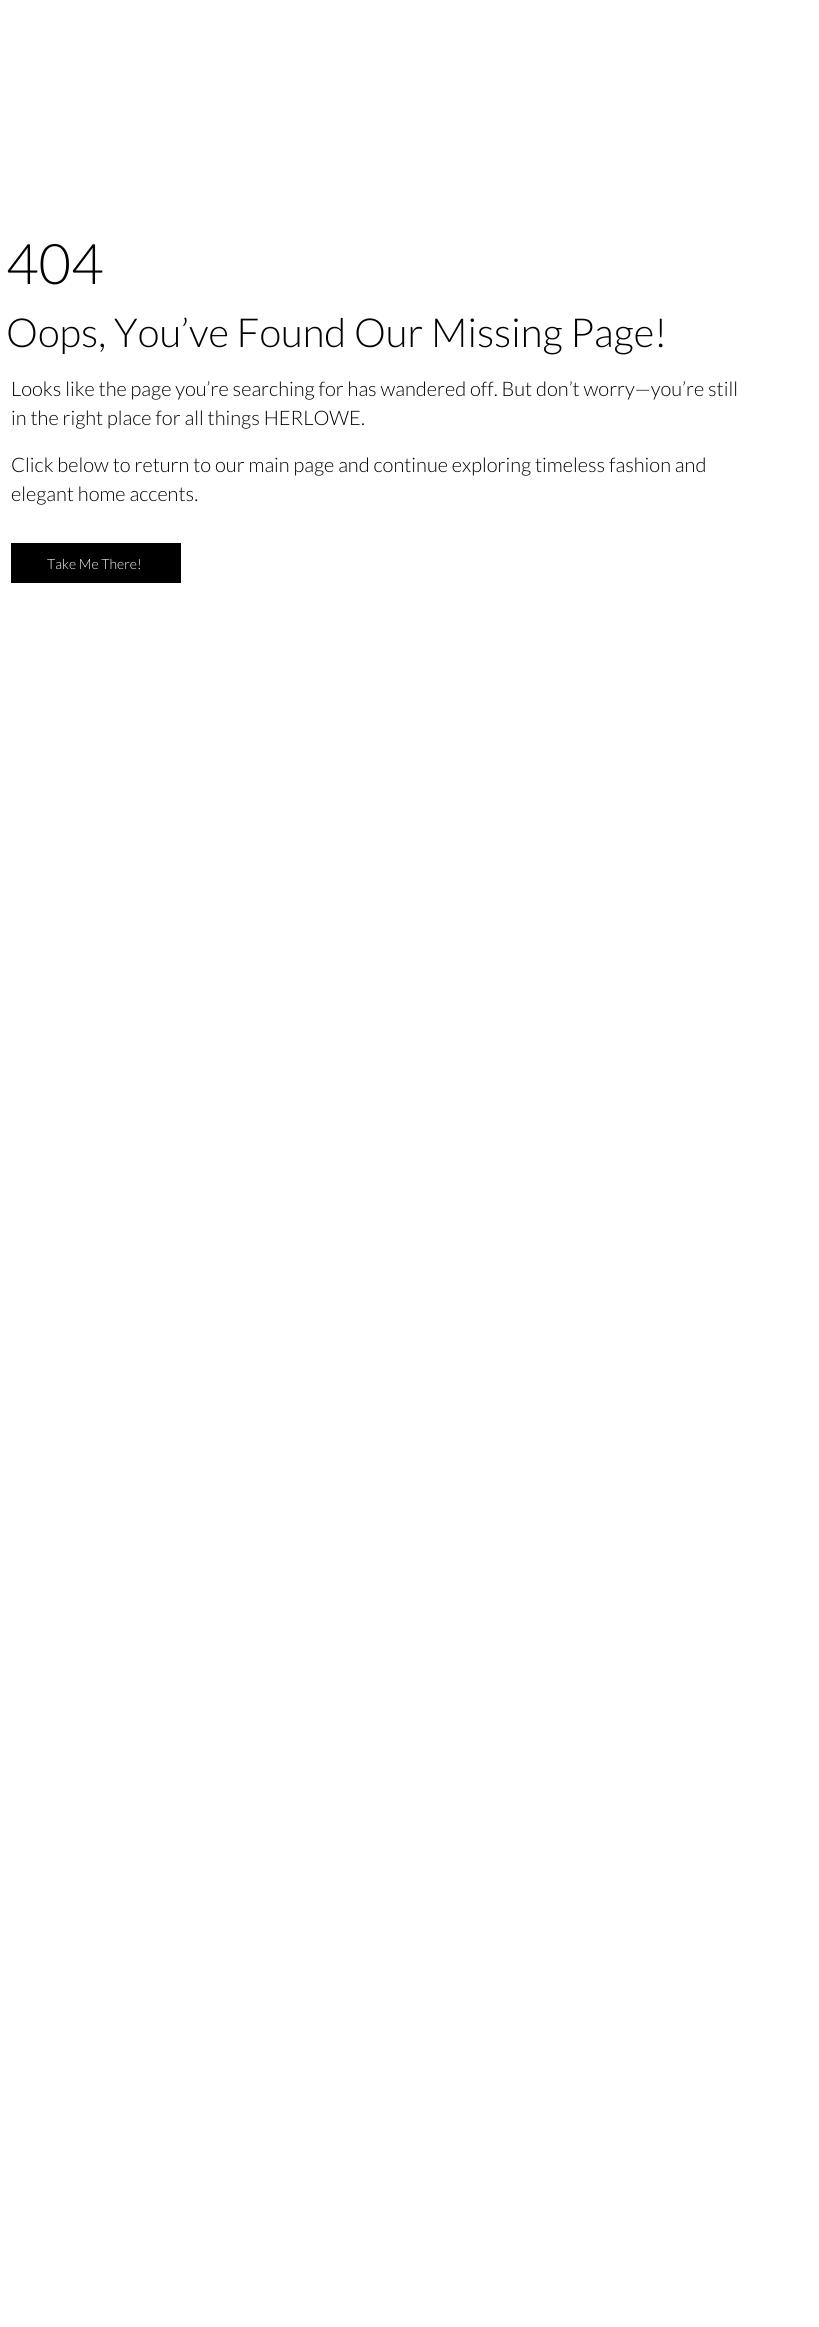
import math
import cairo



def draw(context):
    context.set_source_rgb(1, 1, 1)
    context.paint()
    context.set_source_rgb(0, 0, 0)
    context.rectangle(11, 543, 170, 40)
    context.fill()
    context.select_font_face("Lato Light")
    context.set_font_size(56)
    context.move_to(6, 284)
    context.show_text("404")
    context.set_font_size(40)
    context.move_to(6, 347)
    context.show_text("Oops, You’ve Found Our Missing Page!")
    context.set_font_size(20)
    context.move_to(11, 396)
    context.show_text("Looks like the page you’re searching for has wandered off. But don’t worry—you’re still")
    context.move_to(11, 425)
    context.show_text("in the right place for all things HERLOWE.")
    context.move_to(11, 472)
    context.show_text("Click below to return to our main page and continue exploring timeless fashion and")
    context.move_to(11, 501)
    context.show_text("elegant home accents.")
    context.set_font_size(14)
    context.set_source_rgb(1, 1, 1)
    context.move_to(47, 569)
    context.show_text("Take Me There!")


surface = cairo.ImageSurface(cairo.Format.RGB24, 819, 2327)
context = cairo.Context(surface)
options = cairo.FontOptions()
options.set_hint_metrics(cairo.HintMetrics.OFF)
options.set_hint_style(cairo.HintStyle.NONE)
context.set_font_options(options)
context.set_miter_limit(4)
draw(context)
surface.write_to_png("out.png")
